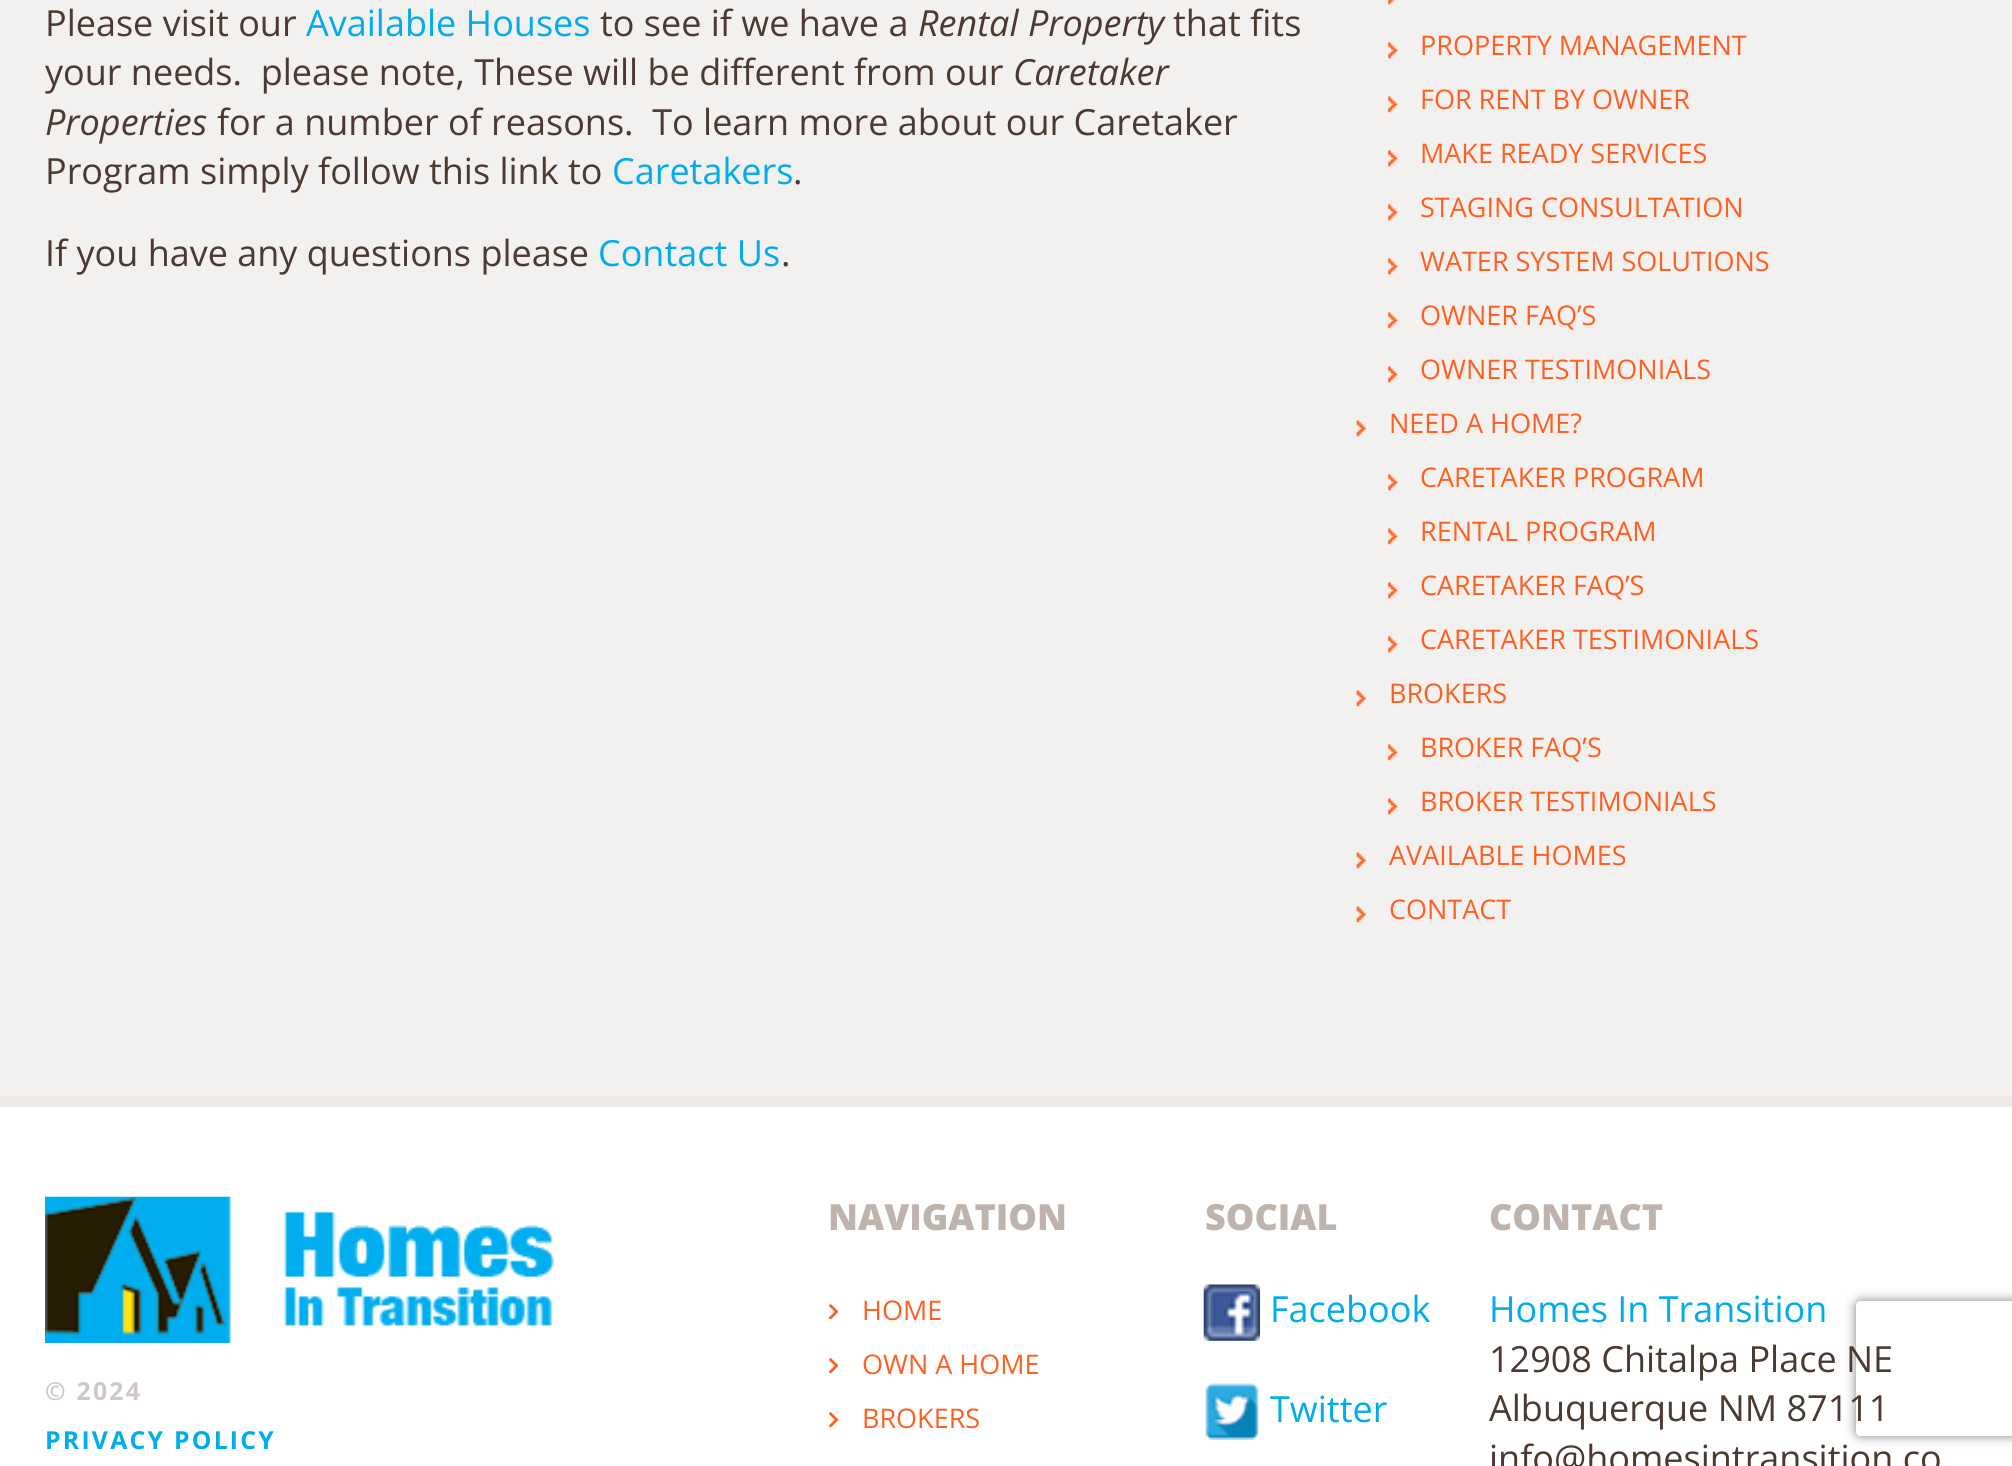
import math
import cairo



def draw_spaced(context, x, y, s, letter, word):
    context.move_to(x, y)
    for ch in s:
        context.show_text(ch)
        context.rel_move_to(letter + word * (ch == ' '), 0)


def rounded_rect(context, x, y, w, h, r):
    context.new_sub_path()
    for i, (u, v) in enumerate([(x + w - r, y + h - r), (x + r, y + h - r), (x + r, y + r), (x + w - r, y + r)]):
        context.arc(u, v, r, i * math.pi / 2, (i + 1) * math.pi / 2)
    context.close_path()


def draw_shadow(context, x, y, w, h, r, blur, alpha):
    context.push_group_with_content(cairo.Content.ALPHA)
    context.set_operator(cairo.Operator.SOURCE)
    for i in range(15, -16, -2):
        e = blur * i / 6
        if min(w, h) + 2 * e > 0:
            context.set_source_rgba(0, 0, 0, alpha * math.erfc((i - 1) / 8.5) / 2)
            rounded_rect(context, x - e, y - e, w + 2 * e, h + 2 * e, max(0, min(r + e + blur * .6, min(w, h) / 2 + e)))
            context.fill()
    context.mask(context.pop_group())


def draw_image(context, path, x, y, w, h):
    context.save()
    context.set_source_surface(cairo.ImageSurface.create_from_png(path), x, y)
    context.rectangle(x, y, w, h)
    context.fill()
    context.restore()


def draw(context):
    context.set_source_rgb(243 / 255, 241 / 255, 240 / 255)
    context.paint()
    draw_image(context, "images/1.png", 1388, 0, 8, 5)
    draw_image(context, "images/2.png", 1388, 42, 10, 17)
    draw_image(context, "images/2.png", 1388, 96, 10, 17)
    draw_image(context, "images/2.png", 1388, 150, 10, 17)
    draw_image(context, "images/2.png", 1388, 204, 10, 17)
    draw_image(context, "images/2.png", 1388, 258, 10, 17)
    draw_image(context, "images/2.png", 1388, 312, 10, 17)
    draw_image(context, "images/2.png", 1388, 366, 10, 17)
    draw_image(context, "images/3.png", 1356, 420, 10, 17)
    draw_image(context, "images/2.png", 1388, 474, 10, 17)
    draw_image(context, "images/2.png", 1388, 528, 10, 17)
    draw_image(context, "images/2.png", 1388, 582, 10, 17)
    draw_image(context, "images/2.png", 1388, 636, 10, 17)
    draw_image(context, "images/3.png", 1356, 690, 10, 17)
    draw_image(context, "images/2.png", 1388, 744, 10, 17)
    draw_image(context, "images/2.png", 1388, 798, 10, 17)
    draw_image(context, "images/3.png", 1356, 852, 10, 17)
    draw_image(context, "images/3.png", 1356, 906, 10, 17)
    context.set_source_rgb(1, 1, 1)
    context.rectangle(0, 1107, 2012, 359)
    context.fill()
    context.set_source_rgb(236 / 255, 233 / 255, 231 / 255)
    context.rectangle(0, 1096, 2012, 11)
    context.fill()
    draw_image(context, "images/4.png", 45, 1196, 510, 147)
    draw_image(context, "images/5.png", 829, 1304, 10, 16)
    draw_image(context, "images/5.png", 829, 1358, 10, 16)
    draw_image(context, "images/5.png", 829, 1412, 10, 16)
    draw_image(context, "images/6.png", 1203, 1284, 57, 57)
    draw_image(context, "images/7.png", 1205, 1383, 54, 57)
    context.save()
    context.set_fill_rule(cairo.FillRule.EVEN_ODD)
    context.new_path()
    context.move_to(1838, 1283)
    context.line_to(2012, 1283)
    context.line_to(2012, 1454)
    context.line_to(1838, 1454)
    context.close_path()
    context.move_to(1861, 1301)
    context.line_to(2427, 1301)
    context.curve_to(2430, 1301, 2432, 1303, 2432, 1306)
    context.line_to(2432, 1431)
    context.curve_to(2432, 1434, 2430, 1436, 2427, 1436)
    context.line_to(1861, 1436)
    context.curve_to(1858, 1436, 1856, 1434, 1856, 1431)
    context.line_to(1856, 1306)
    context.curve_to(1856, 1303, 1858, 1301, 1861, 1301)
    context.close_path()
    context.clip()
    context.set_source_rgb(128 / 255, 128 / 255, 128 / 255)
    draw_shadow(context, 1856, 1301, 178, 135, 5, 5.5, 1)
    context.restore()
    context.select_font_face("Open Sans")
    context.set_font_size(36)
    context.set_source_rgb(75 / 255, 57 / 255, 50 / 255)
    context.move_to(45, 36)
    context.show_text("Please visit our")
    context.set_source_rgb(0, 172 / 255, 236 / 255)
    context.move_to(306, 36)
    context.show_text("Available Houses")
    context.set_source_rgb(75 / 255, 57 / 255, 50 / 255)
    context.move_to(600, 36)
    context.show_text("to see if we have a")
    context.select_font_face("Open Sans", cairo.FontSlant.ITALIC)
    context.move_to(918, 36)
    context.show_text("Rental Property")
    context.select_font_face("Open Sans")
    context.move_to(1173, 36)
    context.show_text("that fits")
    context.move_to(45, 85)
    context.show_text("your needs.  please note, These will be different from our")
    context.select_font_face("Open Sans", cairo.FontSlant.ITALIC)
    context.move_to(1013, 85)
    context.show_text("Caretaker")
    context.move_to(45, 135)
    context.show_text("Properties")
    context.select_font_face("Open Sans")
    context.move_to(217, 135)
    context.show_text("for a number of reasons.  To learn more about our Caretaker")
    context.move_to(45, 184)
    context.show_text("Program simply follow this link to")
    context.set_source_rgb(0, 172 / 255, 236 / 255)
    context.move_to(612, 184)
    context.show_text("Caretakers")
    context.set_source_rgb(75 / 255, 57 / 255, 50 / 255)
    context.move_to(793, 184)
    context.show_text(".")
    context.move_to(45, 266)
    context.show_text("If you have any questions please")
    context.set_source_rgb(0, 172 / 255, 236 / 255)
    context.move_to(598, 266)
    context.show_text("Contact Us")
    context.set_source_rgb(75 / 255, 57 / 255, 50 / 255)
    context.move_to(781, 266)
    context.show_text(".")
    context.set_font_size(27)
    context.set_source_rgb(254 / 255, 96 / 255, 33 / 255)
    context.move_to(1420, 55)
    context.show_text("PROPERTY MANAGEMENT")
    context.move_to(1420, 109)
    context.show_text("FOR RENT BY OWNER")
    context.move_to(1420, 163)
    context.show_text("MAKE READY SERVICES")
    context.move_to(1420, 217)
    context.show_text("STAGING CONSULTATION")
    context.move_to(1420, 271)
    context.show_text("WATER SYSTEM SOLUTIONS")
    context.move_to(1420, 325)
    context.show_text("OWNER FAQ’S")
    context.move_to(1420, 379)
    context.show_text("OWNER TESTIMONIALS")
    context.move_to(1389, 433)
    context.show_text("NEED A HOME?")
    context.move_to(1420, 487)
    context.show_text("CARETAKER PROGRAM")
    context.move_to(1420, 541)
    context.show_text("RENTAL PROGRAM")
    context.move_to(1420, 595)
    context.show_text("CARETAKER FAQ’S")
    context.move_to(1420, 649)
    context.show_text("CARETAKER TESTIMONIALS")
    context.move_to(1389, 703)
    context.show_text("BROKERS")
    context.move_to(1420, 757)
    context.show_text("BROKER FAQ’S")
    context.move_to(1420, 811)
    context.show_text("BROKER TESTIMONIALS")
    context.move_to(1389, 865)
    context.show_text("AVAILABLE HOMES")
    context.move_to(1389, 919)
    context.show_text("CONTACT")
    context.select_font_face("Open Sans", cairo.FontSlant.NORMAL, cairo.FontWeight.BOLD)
    context.set_font_size(24.75)
    context.set_source_rgb(208 / 255, 199 / 255, 196 / 255)
    draw_spaced(context, 45, 1400, "© 2024", 2.25, 0)
    context.set_source_rgb(0, 172 / 255, 236 / 255)
    draw_spaced(context, 45, 1449, "PRIVACY POLICY", 2.25, 0)
    context.select_font_face("Open Sans ExtraBold")
    context.set_font_size(36)
    context.set_source_rgb(191 / 255, 179 / 255, 174 / 255)
    context.move_to(828, 1230)
    context.show_text("NAVIGATION")
    context.select_font_face("Open Sans")
    context.set_font_size(27)
    context.set_source_rgb(254 / 255, 96 / 255, 33 / 255)
    context.move_to(862, 1320)
    context.show_text("HOME")
    context.move_to(862, 1374)
    context.show_text("OWN A HOME")
    context.move_to(862, 1428)
    context.show_text("BROKERS")
    context.select_font_face("Open Sans ExtraBold")
    context.set_font_size(36)
    context.set_source_rgb(191 / 255, 179 / 255, 174 / 255)
    context.move_to(1205, 1230)
    context.show_text("SOCIAL")
    context.select_font_face("Open Sans")
    context.set_source_rgb(0, 172 / 255, 236 / 255)
    context.move_to(1270, 1322)
    context.show_text("Facebook")
    context.move_to(1270, 1422)
    context.show_text("Twitter")
    context.select_font_face("Open Sans ExtraBold")
    context.set_source_rgb(191 / 255, 179 / 255, 174 / 255)
    context.move_to(1489, 1230)
    context.show_text("CONTACT")
    context.select_font_face("Open Sans")
    context.set_source_rgb(0, 172 / 255, 236 / 255)
    context.move_to(1489, 1322)
    context.show_text("Homes In Transition")
    context.set_source_rgb(75 / 255, 57 / 255, 50 / 255)
    context.move_to(1489, 1372)
    context.show_text("12908 Chitalpa Place NE")
    context.move_to(1489, 1421)
    context.show_text("Albuquerque NM 87111")
    context.move_to(1489, 1471)
    context.show_text("info@homesintransition.co")


surface = cairo.ImageSurface(cairo.Format.RGB24, 2012, 1466)
context = cairo.Context(surface)
options = cairo.FontOptions()
options.set_hint_metrics(cairo.HintMetrics.OFF)
options.set_hint_style(cairo.HintStyle.NONE)
context.set_font_options(options)
context.set_miter_limit(4)
draw(context)
surface.write_to_png("out.png")
